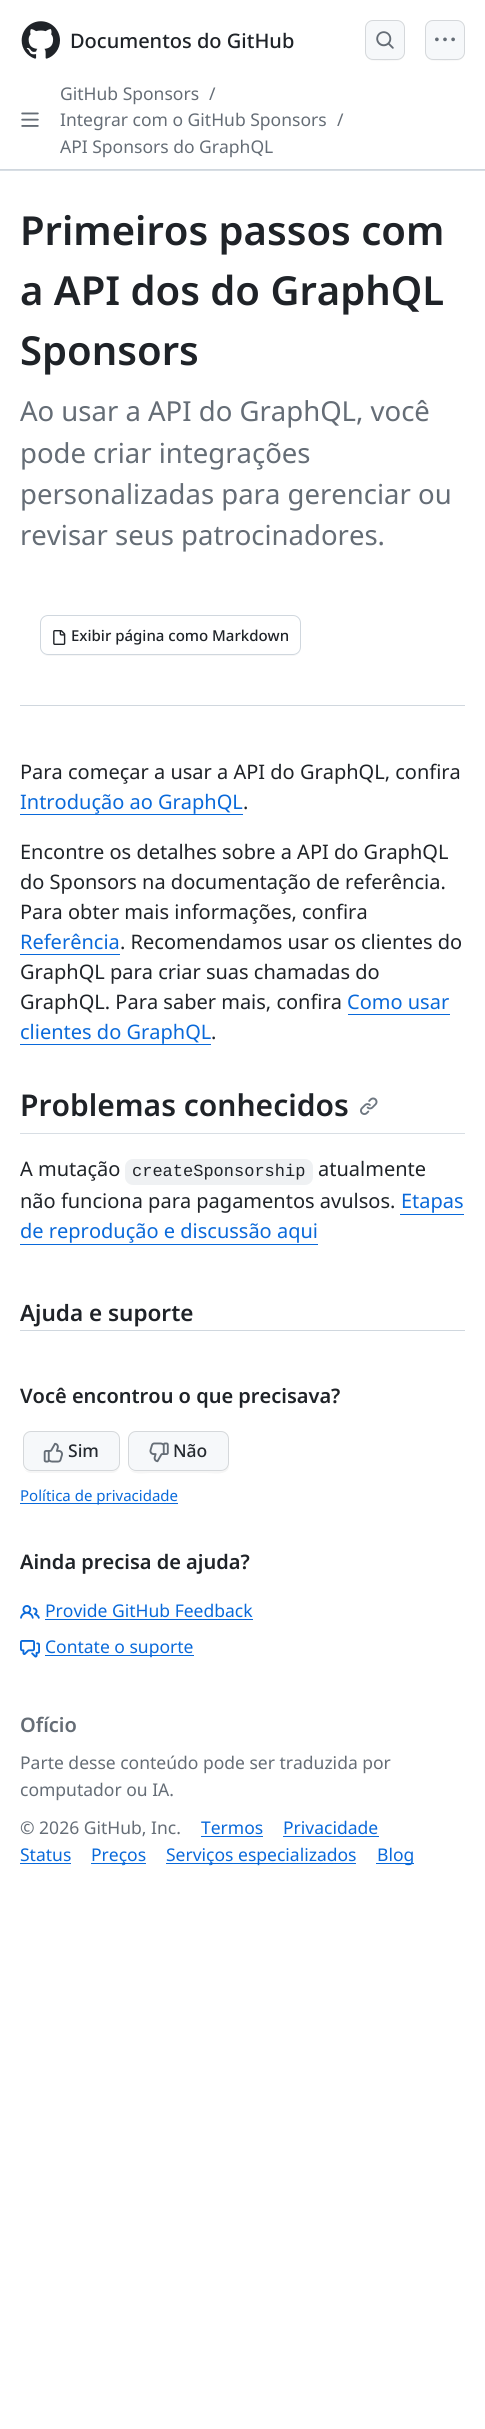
import math
import cairo



def rounded_rect(context, x, y, w, h, r):
    context.new_sub_path()
    for i, (u, v) in enumerate([(x + w - r, y + h - r), (x + r, y + h - r), (x + r, y + r), (x + w - r, y + r)]):
        context.arc(u, v, r, i * math.pi / 2, (i + 1) * math.pi / 2)
    context.close_path()


def draw_image(context, path, x, y, w, h):
    context.save()
    context.set_source_surface(cairo.ImageSurface.create_from_png(path), x, y)
    context.rectangle(x, y, w, h)
    context.fill()
    context.restore()


def draw(context):
    context.set_source_rgb(1, 1, 1)
    context.paint()
    context.set_source_rgb(216 / 255, 222 / 255, 228 / 255)
    context.rectangle(0, 170, 485, 1)
    context.fill()
    context.set_source_rgb(208 / 255, 215 / 255, 222 / 255)
    context.rectangle(0, 169, 485, 1)
    context.fill()
    draw_image(context, "images/1.png", 21, 21, 39, 38)
    context.set_source_rgb(246 / 255, 246 / 255, 246 / 255)
    context.new_path()
    context.move_to(365, 52)
    context.curve_to(365, 63, 378, 61, 385, 61)
    context.curve_to(392, 61, 405, 63, 405, 52)
    context.curve_to(405, 63, 391, 60, 385, 60)
    context.curve_to(379, 60, 365, 63, 365, 52)
    context.close_path()
    context.fill()
    context.set_source_rgb(246 / 255, 248 / 255, 250 / 255)
    rounded_rect(context, 365, 20, 40, 40, 8)
    context.fill()
    rounded_rect(context, 365.5, 20.5, 39, 39, 7.5)
    context.set_source_rgba(31 / 255, 35 / 255, 40 / 255, 0.15)
    context.set_line_width(1)
    context.stroke()
    draw_image(context, "images/2.png", 376, 31, 18, 18)
    context.set_source_rgb(246 / 255, 246 / 255, 246 / 255)
    context.new_path()
    context.move_to(425, 52)
    context.curve_to(425, 63, 438, 61, 445, 61)
    context.curve_to(452, 61, 465, 63, 465, 52)
    context.curve_to(465, 63, 451, 60, 445, 60)
    context.curve_to(439, 60, 425, 63, 425, 52)
    context.close_path()
    context.fill()
    context.set_source_rgb(246 / 255, 248 / 255, 250 / 255)
    rounded_rect(context, 425, 20, 40, 40, 8)
    context.fill()
    rounded_rect(context, 425.5, 20.5, 39, 39, 7.5)
    context.set_source_rgba(31 / 255, 35 / 255, 40 / 255, 0.15)
    context.stroke()
    draw_image(context, "images/3.png", 435, 37, 20, 5)
    draw_image(context, "images/4.png", 21, 112, 18, 15)
    context.set_source_rgb(208 / 255, 215 / 255, 222 / 255)
    context.rectangle(20, 705, 445, 1)
    context.fill()
    context.set_source_rgb(246 / 255, 246 / 255, 246 / 255)
    context.new_path()
    context.move_to(40, 648)
    context.curve_to(40, 652, 44, 656, 48, 656)
    context.line_to(293, 656)
    context.curve_to(296, 656, 299, 654, 301, 651)
    context.curve_to(299, 653, 297, 655, 294, 655)
    context.line_to(48, 655)
    context.curve_to(43, 655, 40, 652, 40, 648)
    context.close_path()
    context.fill()
    rounded_rect(context, 40.5, 615.5, 260, 39, 7.5)
    context.set_source_rgb(208 / 255, 215 / 255, 222 / 255)
    context.stroke()
    draw_image(context, "images/5.png", 53, 630, 13, 15)
    context.set_source_rgb(9 / 255, 105 / 255, 218 / 255)
    context.rectangle(20, 814, 223, 1)
    context.fill()
    context.rectangle(20, 954, 100, 1)
    context.fill()
    context.rectangle(348, 1014, 102, 1)
    context.fill()
    context.rectangle(20, 1044, 191, 1)
    context.fill()
    context.set_source_rgb(216 / 255, 222 / 255, 228 / 255)
    context.rectangle(20, 1133, 445, 1)
    context.fill()
    draw_image(context, "images/6.png", 360, 1097, 18, 18)
    context.set_source_rgb(239 / 255, 241 / 255, 243 / 255)
    rounded_rect(context, 125, 1159, 188, 26, 8)
    context.fill()
    context.set_source_rgb(9 / 255, 105 / 255, 218 / 255)
    context.rectangle(400, 1214, 64, 1)
    context.fill()
    context.rectangle(20, 1244, 298, 1)
    context.fill()
    context.set_source_rgb(208 / 255, 215 / 255, 222 / 255)
    context.rectangle(20, 1330, 445, 1)
    context.fill()
    context.set_source_rgb(246 / 255, 246 / 255, 246 / 255)
    context.new_path()
    context.move_to(23, 1467)
    context.curve_to(24, 1470, 27, 1473, 31, 1473)
    context.line_to(112, 1473)
    context.curve_to(116, 1473, 120, 1469, 120, 1465)
    context.line_to(120, 1464)
    context.curve_to(120, 1468, 117, 1471, 112, 1471)
    context.line_to(30, 1471)
    context.curve_to(27, 1471, 24, 1470, 23, 1467)
    context.close_path()
    context.fill()
    context.set_source_rgb(246 / 255, 248 / 255, 250 / 255)
    rounded_rect(context, 23, 1431, 97, 40, 8)
    context.fill()
    rounded_rect(context, 23.5, 1431.5, 96, 39, 7.5)
    context.set_source_rgba(31 / 255, 35 / 255, 40 / 255, 0.15)
    context.stroke()
    draw_image(context, "images/7.png", 43, 1442, 20, 21)
    context.set_source_rgb(246 / 255, 246 / 255, 246 / 255)
    context.new_path()
    context.move_to(128, 1467)
    context.curve_to(131, 1476, 144, 1473, 150, 1473)
    context.line_to(207, 1473)
    context.curve_to(213, 1473, 227, 1476, 229, 1467)
    context.line_to(229, 1439)
    context.line_to(229, 1464)
    context.curve_to(229, 1468, 225, 1471, 221, 1471)
    context.line_to(135, 1471)
    context.curve_to(132, 1471, 129, 1470, 128, 1467)
    context.close_path()
    context.fill()
    context.set_source_rgb(246 / 255, 248 / 255, 250 / 255)
    rounded_rect(context, 128, 1431, 101, 40, 8)
    context.fill()
    rounded_rect(context, 128.5, 1431.5, 100, 39, 7.5)
    context.set_source_rgba(31 / 255, 35 / 255, 40 / 255, 0.15)
    context.stroke()
    draw_image(context, "images/8.png", 149, 1442, 20, 21)
    context.set_source_rgb(9 / 255, 105 / 255, 218 / 255)
    context.rectangle(20, 1503, 158, 1)
    context.fill()
    draw_image(context, "images/9.png", 20, 1605, 20, 14)
    context.rectangle(45, 1619, 208, 1)
    context.fill()
    draw_image(context, "images/10.png", 20, 1640, 20, 18)
    context.rectangle(45, 1655, 149, 1)
    context.fill()
    context.rectangle(201, 1836, 62, 1)
    context.fill()
    context.rectangle(283, 1836, 96, 1)
    context.fill()
    context.rectangle(20, 1863, 51, 1)
    context.fill()
    context.rectangle(91, 1863, 55, 1)
    context.fill()
    context.rectangle(166, 1863, 190, 1)
    context.fill()
    context.rectangle(376, 1863, 38, 1)
    context.fill()
    context.select_font_face("Noto Sans Medium")
    context.set_font_size(20)
    context.set_source_rgb(31 / 255, 35 / 255, 40 / 255)
    context.move_to(70, 48)
    context.show_text("Documentos do GitHub")
    context.select_font_face("Noto Sans")
    context.set_font_size(17.5)
    context.set_source_rgb(101 / 255, 109 / 255, 118 / 255)
    context.move_to(60, 100)
    context.show_text("GitHub Sponsors")
    context.move_to(209, 100)
    context.show_text("/")
    context.move_to(60, 126)
    context.show_text("Integrar com o GitHub Sponsors")
    context.move_to(337, 126)
    context.show_text("/")
    context.move_to(60, 153)
    context.show_text("API Sponsors do GraphQL")
    context.select_font_face("Noto Sans SemiBold")
    context.set_font_size(40)
    context.set_source_rgb(31 / 255, 35 / 255, 40 / 255)
    context.move_to(20, 245)
    context.show_text("Primeiros passos com")
    context.move_to(20, 305)
    context.show_text("a API dos do GraphQL")
    context.move_to(20, 365)
    context.show_text("Sponsors")
    context.select_font_face("Noto Sans")
    context.set_font_size(27.5)
    context.set_source_rgb(101 / 255, 109 / 255, 118 / 255)
    context.move_to(20, 421)
    context.show_text("Ao usar a API do GraphQL, você")
    context.move_to(20, 463)
    context.show_text("pode criar integrações")
    context.move_to(20, 504)
    context.show_text("personalizadas para gerenciar ou")
    context.move_to(20, 545)
    context.show_text("revisar seus patrocinadores.")
    context.select_font_face("Noto Sans Medium")
    context.set_font_size(15)
    context.set_source_rgb(31 / 255, 35 / 255, 40 / 255)
    context.move_to(71, 641)
    context.show_text("Exibir página como Markdown")
    context.select_font_face("Noto Sans")
    context.set_font_size(20)
    context.move_to(20, 779)
    context.show_text("Para começar a usar a API do GraphQL, confira")
    context.set_source_rgb(9 / 255, 105 / 255, 218 / 255)
    context.move_to(20, 809)
    context.show_text("Introdução ao GraphQL")
    context.set_source_rgb(31 / 255, 35 / 255, 40 / 255)
    context.move_to(243, 809)
    context.show_text(".")
    context.move_to(20, 859)
    context.show_text("Encontre os detalhes sobre a API do GraphQL")
    context.move_to(20, 889)
    context.show_text("do Sponsors na documentação de referência.")
    context.move_to(20, 919)
    context.show_text("Para obter mais informações, confira")
    context.set_source_rgb(9 / 255, 105 / 255, 218 / 255)
    context.move_to(20, 949)
    context.show_text("Referência")
    context.set_source_rgb(31 / 255, 35 / 255, 40 / 255)
    context.move_to(120, 949)
    context.show_text(". Recomendamos usar os clientes do")
    context.move_to(20, 979)
    context.show_text("GraphQL para criar suas chamadas do")
    context.move_to(20, 1009)
    context.show_text("GraphQL. Para saber mais, confira")
    context.set_source_rgb(9 / 255, 105 / 255, 218 / 255)
    context.move_to(347, 1009)
    context.show_text("Como usar")
    context.move_to(20, 1039)
    context.show_text("clientes do GraphQL")
    context.set_source_rgb(31 / 255, 35 / 255, 40 / 255)
    context.move_to(211, 1039)
    context.show_text(".")
    context.select_font_face("Noto Sans SemiBold")
    context.set_font_size(30)
    context.move_to(20, 1116)
    context.show_text("Problemas conhecidos")
    context.select_font_face("Noto Sans")
    context.set_font_size(20)
    context.move_to(20, 1176)
    context.show_text("A mutação")
    context.select_font_face("Liberation Mono")
    context.set_font_size(17)
    context.move_to(132, 1176)
    context.show_text("createSponsorship")
    context.select_font_face("Noto Sans")
    context.set_font_size(20)
    context.move_to(318, 1176)
    context.show_text("atualmente")
    context.move_to(20, 1208)
    context.show_text("não funciona para pagamentos avulsos.")
    context.set_source_rgb(9 / 255, 105 / 255, 218 / 255)
    context.move_to(401, 1208)
    context.show_text("Etapas")
    context.move_to(20, 1238)
    context.show_text("de reprodução e discussão aqui")
    context.select_font_face("Noto Sans SemiBold")
    context.set_font_size(22.5)
    context.set_source_rgb(31 / 255, 35 / 255, 40 / 255)
    context.move_to(20, 1321)
    context.show_text("Ajuda e suporte")
    context.set_font_size(20)
    context.move_to(20, 1403)
    context.show_text("Você encontrou o que precisava?")
    context.select_font_face("Noto Sans Medium")
    context.set_font_size(17.5)
    context.set_source_rgb(36 / 255, 41 / 255, 47 / 255)
    context.move_to(68, 1457)
    context.show_text("Sim")
    context.move_to(173, 1457)
    context.show_text("Não")
    context.select_font_face("Noto Sans")
    context.set_font_size(15)
    context.set_source_rgb(9 / 255, 105 / 255, 218 / 255)
    context.move_to(20, 1501)
    context.show_text("Política de privacidade")
    context.select_font_face("Noto Sans SemiBold")
    context.set_font_size(20)
    context.set_source_rgb(31 / 255, 35 / 255, 40 / 255)
    context.move_to(20, 1569)
    context.show_text("Ainda precisa de ajuda?")
    context.select_font_face("Noto Sans")
    context.set_font_size(17.5)
    context.set_source_rgb(9 / 255, 105 / 255, 218 / 255)
    context.move_to(45, 1617)
    context.show_text("Provide GitHub Feedback")
    context.move_to(45, 1653)
    context.show_text("Contate o suporte")
    context.select_font_face("Noto Sans SemiBold")
    context.set_font_size(20)
    context.set_source_rgb(101 / 255, 109 / 255, 118 / 255)
    context.move_to(20, 1732)
    context.show_text("Ofício")
    context.select_font_face("Noto Sans")
    context.set_font_size(17.5)
    context.move_to(20, 1769)
    context.show_text("Parte desse conteúdo pode ser traduzida por")
    context.move_to(20, 1796)
    context.show_text("computador ou IA.")
    context.move_to(20, 1834)
    context.show_text("© 2026 GitHub, Inc.")
    context.set_source_rgb(9 / 255, 105 / 255, 218 / 255)
    context.move_to(201, 1834)
    context.show_text("Termos")
    context.move_to(283, 1834)
    context.show_text("Privacidade")
    context.move_to(20, 1861)
    context.show_text("Status")
    context.move_to(91, 1861)
    context.show_text("Preços")
    context.move_to(166, 1861)
    context.show_text("Serviços especializados")
    context.move_to(377, 1861)
    context.show_text("Blog")


surface = cairo.ImageSurface(cairo.Format.RGB24, 485, 2429)
context = cairo.Context(surface)
options = cairo.FontOptions()
options.set_hint_metrics(cairo.HintMetrics.OFF)
options.set_hint_style(cairo.HintStyle.NONE)
context.set_font_options(options)
context.set_miter_limit(4)
draw(context)
surface.write_to_png("out.png")
